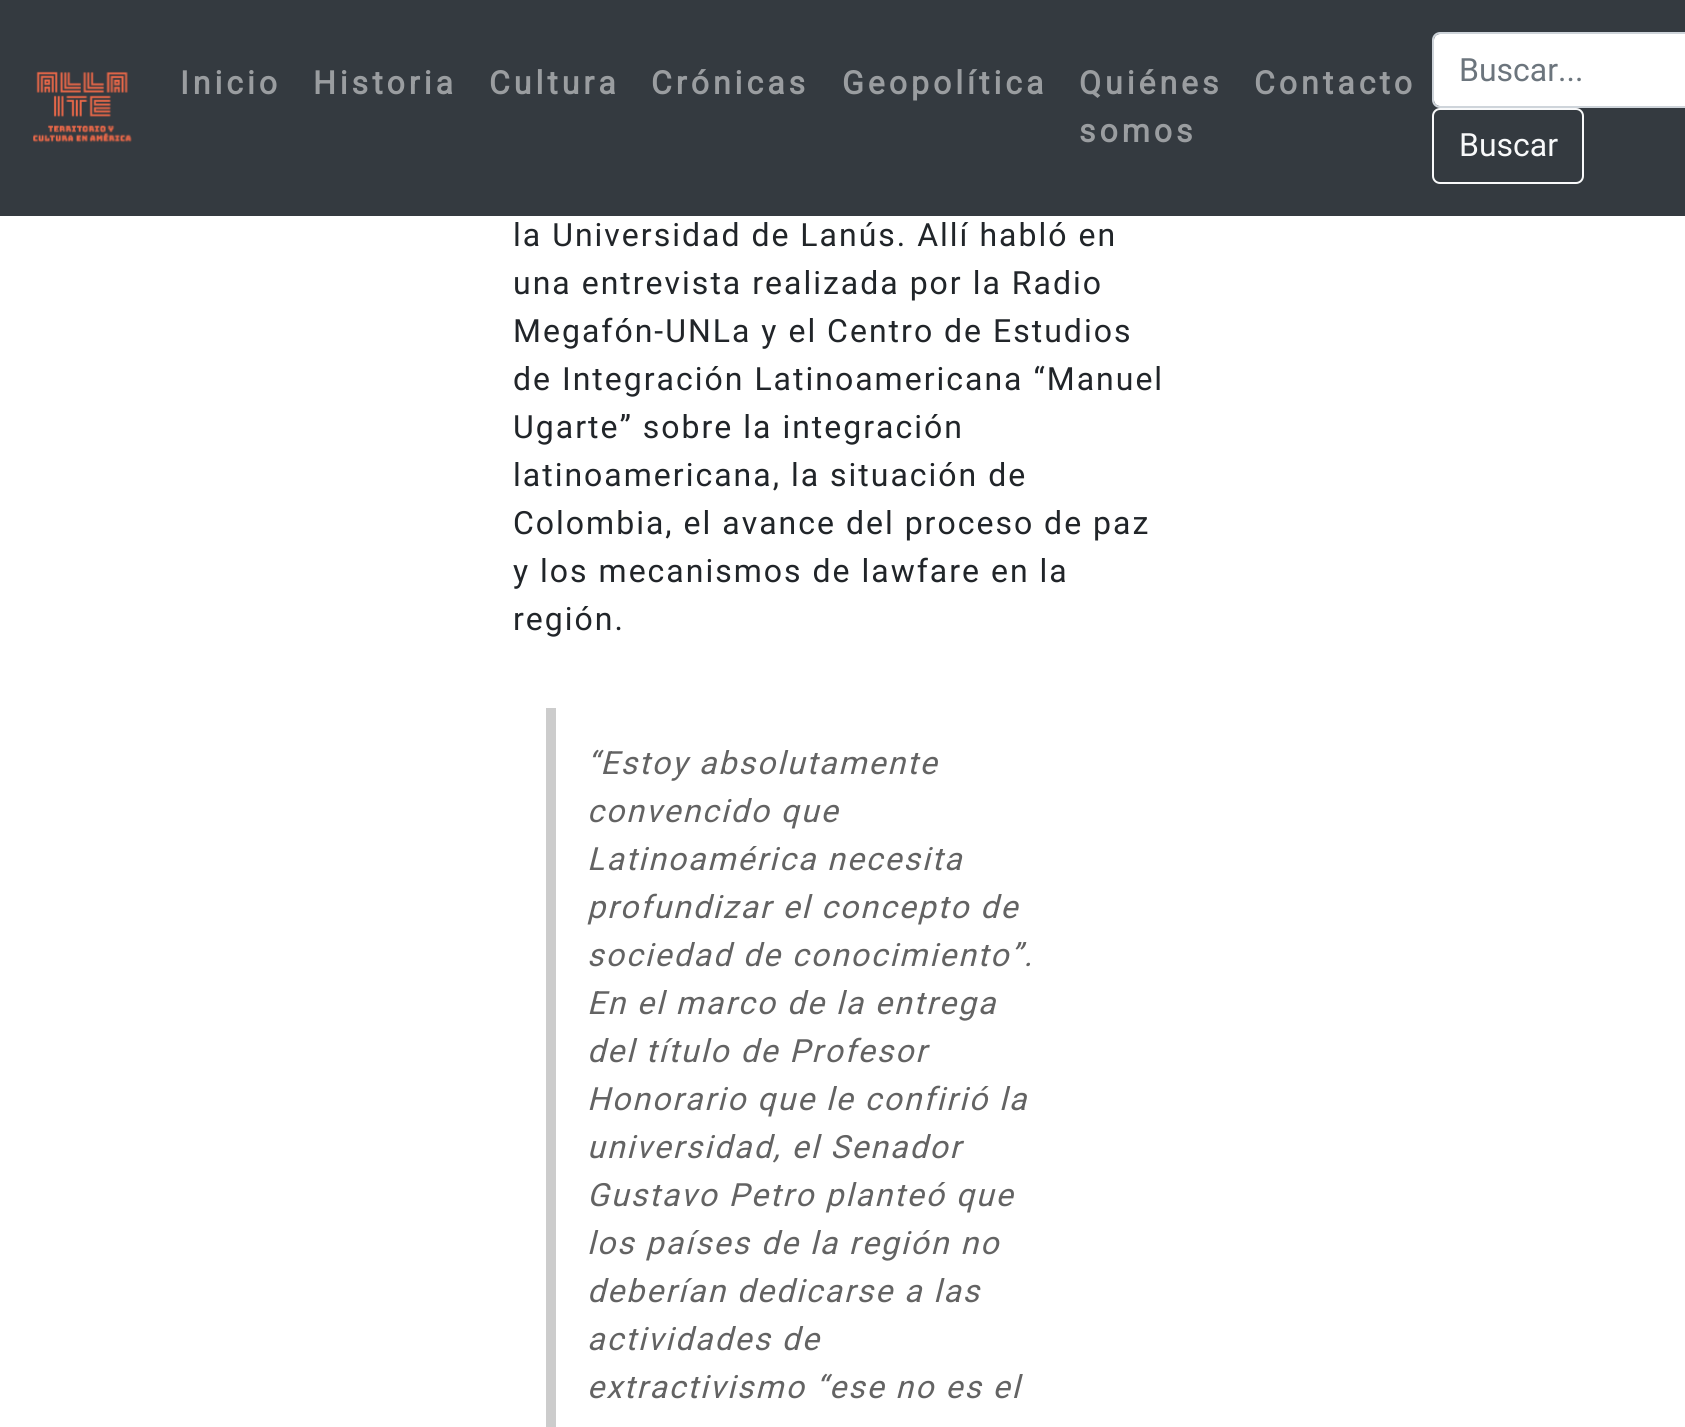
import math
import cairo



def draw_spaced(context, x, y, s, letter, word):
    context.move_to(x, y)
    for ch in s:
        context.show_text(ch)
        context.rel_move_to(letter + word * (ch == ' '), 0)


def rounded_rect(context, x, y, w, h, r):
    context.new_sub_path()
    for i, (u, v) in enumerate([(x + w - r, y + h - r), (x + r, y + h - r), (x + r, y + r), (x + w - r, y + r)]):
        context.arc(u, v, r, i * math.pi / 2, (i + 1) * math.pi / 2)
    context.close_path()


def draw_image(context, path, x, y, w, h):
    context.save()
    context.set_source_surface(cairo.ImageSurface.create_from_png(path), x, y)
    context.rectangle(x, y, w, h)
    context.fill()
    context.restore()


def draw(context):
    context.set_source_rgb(1, 1, 1)
    context.paint()
    context.set_source_rgb(52 / 255, 58 / 255, 64 / 255)
    context.rectangle(0, 0, 1685, 216)
    context.fill()
    draw_image(context, "images/1.png", 33, 71, 99, 72)
    context.set_source_rgb(1, 1, 1)
    rounded_rect(context, 1434, 34, 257, 72, 6)
    context.fill()
    rounded_rect(context, 1433, 33, 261, 74, 7)
    context.set_source_rgb(206 / 255, 212 / 255, 218 / 255)
    context.stroke()
    rounded_rect(context, 1433, 109, 150, 74, 7)
    context.set_source_rgb(248 / 255, 249 / 255, 250 / 255)
    context.stroke()
    context.set_source_rgb(204 / 255, 204 / 255, 204 / 255)
    context.rectangle(546, 708, 10, 719)
    context.fill()
    context.select_font_face("Roboto", cairo.FontSlant.NORMAL, cairo.FontWeight.BOLD)
    context.set_font_size(32)
    context.set_source_rgb(154 / 255, 157 / 255, 160 / 255)
    draw_spaced(context, 180, 94, "Inicio", 4, 0)
    draw_spaced(context, 313, 94, "Historia", 4, 0)
    draw_spaced(context, 489, 94, "Cultura", 4, 0)
    draw_spaced(context, 651, 94, "Crónicas", 4, 0)
    draw_spaced(context, 842, 94, "Geopolítica", 4, 0)
    draw_spaced(context, 1079, 94, "Quiénes", 4, 0)
    draw_spaced(context, 1079, 142, "somos", 4, 0)
    draw_spaced(context, 1254, 94, "Contacto", 4, 0)
    context.select_font_face("Roboto")
    context.set_source_rgb(108 / 255, 117 / 255, 125 / 255)
    context.move_to(1459, 81)
    context.show_text("Buscar...")
    context.set_source_rgb(248 / 255, 249 / 255, 250 / 255)
    context.move_to(1459, 156)
    context.show_text("Buscar")
    context.set_source_rgb(33 / 255, 37 / 255, 41 / 255)
    draw_spaced(context, 513, 246, "la Universidad de Lanús. Allí habló en", 2, 0)
    draw_spaced(context, 513, 294, "una entrevista realizada por la Radio", 2, 0)
    draw_spaced(context, 513, 342, "Megafón-UNLa y el Centro de Estudios", 2, 0)
    draw_spaced(context, 513, 390, "de Integración Latinoamericana “Manuel", 2, 0)
    draw_spaced(context, 513, 438, "Ugarte” sobre la integración", 2, 0)
    draw_spaced(context, 513, 486, "latinoamericana, la situación de", 2, 0)
    draw_spaced(context, 513, 534, "Colombia, el avance del proceso de paz", 2, 0)
    draw_spaced(context, 513, 582, "y los mecanismos de lawfare en la", 2, 0)
    draw_spaced(context, 513, 630, "región.", 2, 0)
    context.select_font_face("Roboto", cairo.FontSlant.ITALIC)
    context.set_source_rgb(99 / 255, 99 / 255, 99 / 255)
    draw_spaced(context, 587, 774, "“Estoy absolutamente", 2, 0)
    draw_spaced(context, 587, 822, "convencido que", 2, 0)
    draw_spaced(context, 587, 870, "Latinoamérica necesita", 2, 0)
    draw_spaced(context, 587, 918, "profundizar el concepto de", 2, 0)
    draw_spaced(context, 587, 966, "sociedad de conocimiento”.", 2, 0)
    draw_spaced(context, 587, 1014, "En el marco de la entrega", 2, 0)
    draw_spaced(context, 587, 1062, "del título de Profesor", 2, 0)
    draw_spaced(context, 587, 1110, "Honorario que le confirió la", 2, 0)
    draw_spaced(context, 587, 1158, "universidad, el Senador", 2, 0)
    draw_spaced(context, 587, 1206, "Gustavo Petro planteó que", 2, 0)
    draw_spaced(context, 587, 1254, "los países de la región no", 2, 0)
    draw_spaced(context, 587, 1302, "deberían dedicarse a las", 2, 0)
    draw_spaced(context, 587, 1350, "actividades de", 2, 0)
    draw_spaced(context, 587, 1398, "extractivismo “ese no es el", 2, 0)


surface = cairo.ImageSurface(cairo.Format.RGB24, 1685, 1427)
context = cairo.Context(surface)
options = cairo.FontOptions()
options.set_hint_metrics(cairo.HintMetrics.OFF)
options.set_hint_style(cairo.HintStyle.NONE)
context.set_font_options(options)
context.set_miter_limit(4)
draw(context)
surface.write_to_png("out.png")
